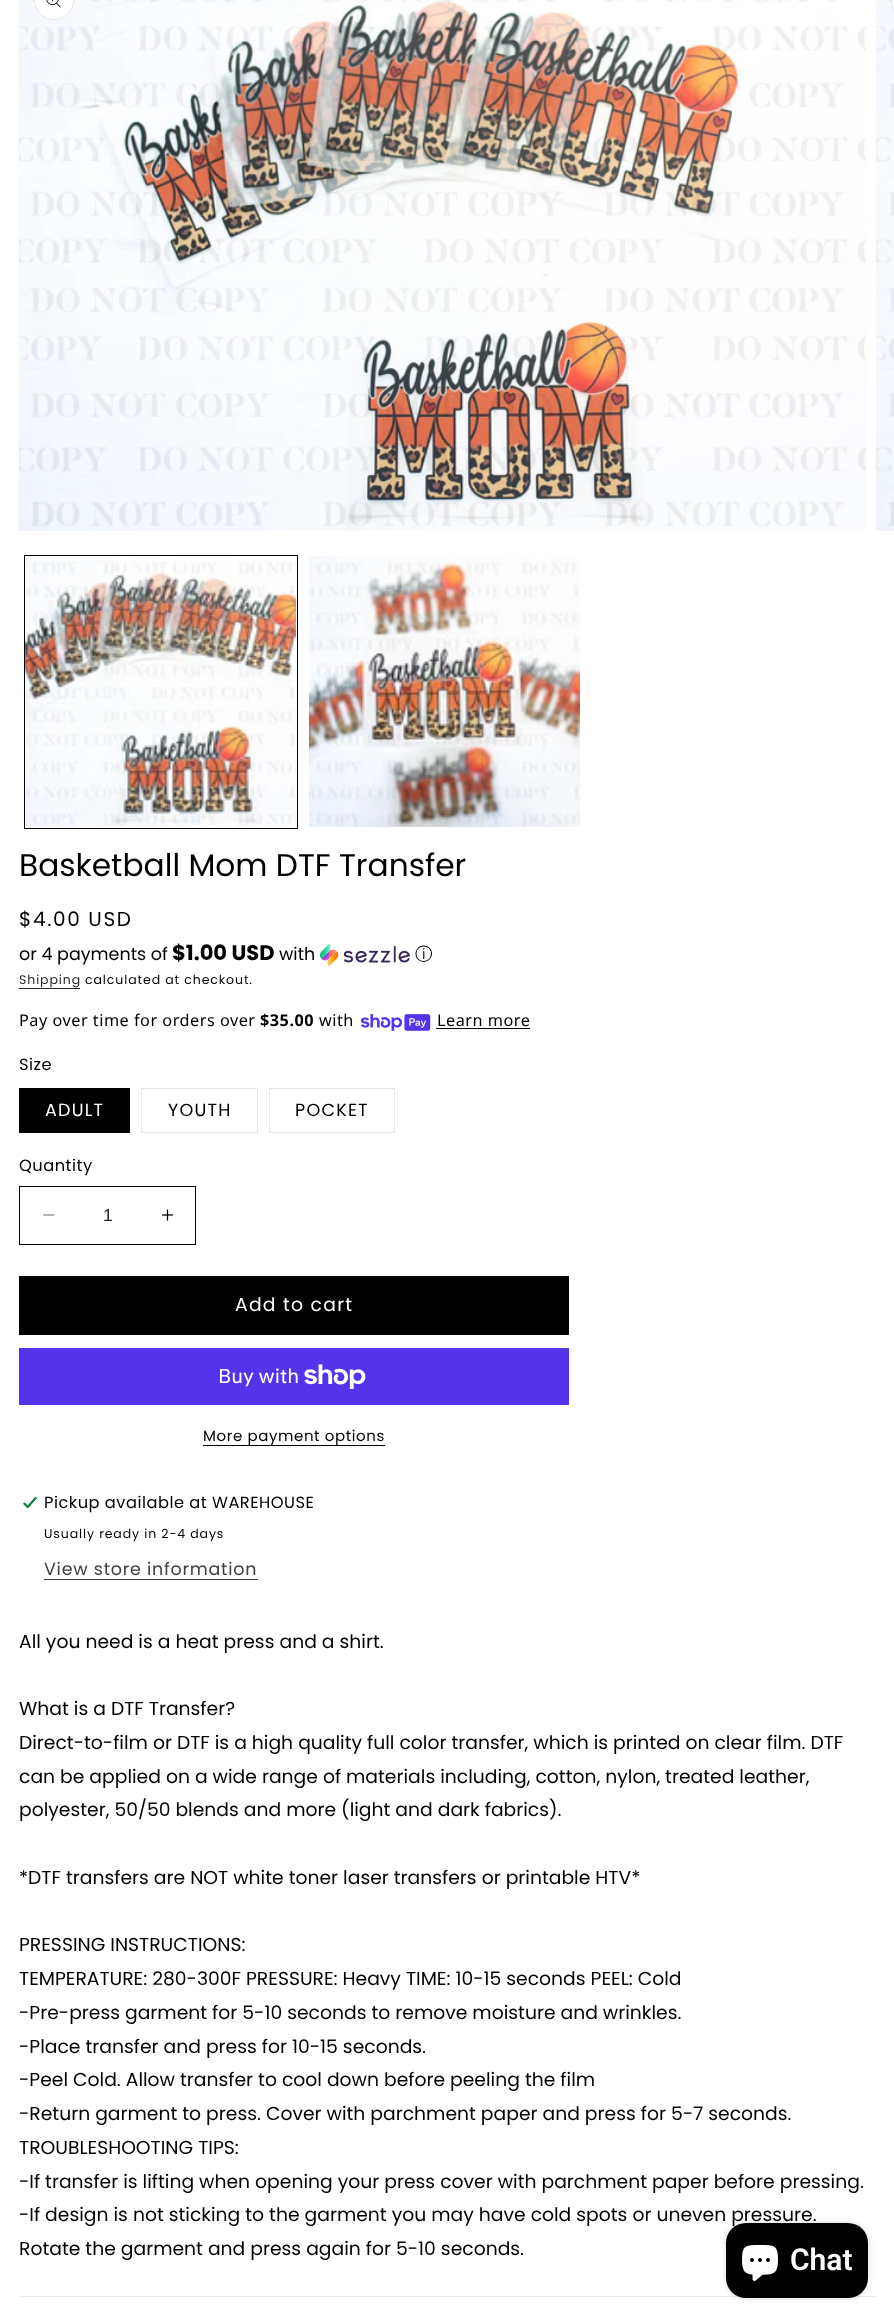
<svg xmlns="http://www.w3.org/2000/svg" width="894" height="2323" viewBox="0 0 894 2323">
  <rect width="100%" height="100%" fill="rgb(255,255,255)"/>
  <image x="18" y="0" width="849" height="531" href="pic2.png"/>
  <circle cx="54" cy="0" r="20" fill="rgb(255,255,255)"/>
  <circle cx="54" cy="0" r="19.5" fill="none" stroke="rgba(0,0,0,0.1)"/>
  <image x="46" y="0" width="15" height="8" href="pic1.png"/>
  <image x="876" y="0" width="18" height="531" href="pic3.png"/>
  <path d="M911-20H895V20H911C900 20 891 11 891 0C891-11 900-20 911-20Z" fill="rgb(255,255,255)"/>
  <rect x="891.5" y="-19.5" width="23" height="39" rx="19.5" fill="none" stroke="rgba(0,0,0,0.1)"/>
  <rect x="24.5" y="555.5" width="273" height="273" fill="none" stroke="rgb(0,0,0)"/>
  <image x="25" y="556" width="272" height="271" href="pic4.png"/>
  <image x="308" y="556" width="272" height="271" href="pic5.png"/>
  <text x="19" y="876" font-family="Poppins" font-size="31.25" fill="rgb(0,0,0)">Basketball Mom DTF Transfer</text>
  <text x="19" y="926" font-family="Poppins" font-size="20" letter-spacing="1.6" fill="rgb(0,0,0)">$4.00 USD</text>
  <text x="19" y="960" font-family="Poppins" font-size="17.5" fill="rgb(0,0,0)">or 4 payments of</text>
  <text x="172" y="960" font-family="Poppins" font-size="21" font-weight="bold" fill="rgb(0,0,0)">$1.00 USD</text>
  <text x="279" y="960" font-family="Poppins" font-size="17.5" fill="rgb(0,0,0)">with</text>
  <image x="320" y="944" width="90" height="22" href="pic6.png"/>
  <text x="415" y="960" font-family="WenQuanYi Zen Hei" font-size="17.5" font-weight="500" fill="rgb(0,0,0)">ⓘ</text>
  <text x="19" y="984" font-family="Poppins" font-size="12.5" letter-spacing="0.9" fill="rgb(38,38,38)">Shipping</text>
  <rect x="19" y="988" width="61" height="1" fill="rgb(38,38,38)"/>
  <text x="85" y="984" font-family="Poppins" font-size="12.5" letter-spacing="0.9" fill="rgb(0,0,0)">calculated at checkout.</text>
  <text x="19" y="1026" font-family="Noto Sans" font-size="16.25" letter-spacing="0.5" fill="rgb(0,0,0)">Pay over time for orders over</text>
  <text x="260" y="1026" font-family="Noto Sans" font-size="16.25" font-weight="bold" letter-spacing="0.5" fill="rgb(0,0,0)">$35.00</text>
  <text x="319" y="1026" font-family="Noto Sans" font-size="16.25" letter-spacing="0.5" fill="rgb(0,0,0)">with</text>
  <image x="361" y="1014" width="70" height="17" href="pic7.png"/>
  <text x="437" y="1026" font-family="Noto Sans" font-size="16.25" letter-spacing="0.5" fill="rgb(0,0,0)">Learn more</text>
  <rect x="436" y="1028" width="94" height="1" fill="rgb(0,0,0)"/>
  <text x="19" y="1070" font-family="Poppins" font-size="16.25" letter-spacing="0.5" fill="rgb(0,0,0)">Size</text>
  <rect x="19" y="1088" width="111" height="45" fill="rgb(0,0,0)"/>
  <text x="45" y="1116" font-family="Poppins" font-size="17.5" letter-spacing="1.25" fill="rgb(255,255,255)">ADULT</text>
  <rect x="141.5" y="1088.5" width="116" height="44" fill="none" stroke="rgb(230,230,230)"/>
  <text x="168" y="1116" font-family="Poppins" font-size="17.5" letter-spacing="1.25" fill="rgb(0,0,0)">YOUTH</text>
  <rect x="269.5" y="1088.5" width="125" height="44" fill="none" stroke="rgb(230,230,230)"/>
  <text x="295" y="1116" font-family="Poppins" font-size="17.5" letter-spacing="1.25" fill="rgb(0,0,0)">POCKET</text>
  <text x="19" y="1171" font-family="Poppins" font-size="16.25" letter-spacing="0.5" fill="rgb(0,0,0)">Quantity</text>
  <image x="43" y="1214" width="12" height="2" href="pic8.png"/>
  <image x="162" y="1209" width="12" height="12" href="pic9.png"/>
  <rect x="19.5" y="1186.5" width="176" height="58" fill="none" stroke="rgb(0,0,0)"/>
  <text x="103" y="1221" font-family="Liberation Sans" font-size="17.5" fill="rgb(38,38,38)">1</text>
  <rect x="19" y="1276" width="550" height="59" fill="rgb(0,0,0)"/>
  <text x="235" y="1311" font-family="Poppins" font-size="18.75" letter-spacing="1.25" fill="rgb(255,255,255)">Add to cart</text>
  <rect x="19" y="1348" width="550" height="57" fill="rgb(84,51,235)"/>
  <text x="218" y="1383" font-family="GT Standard" font-size="20" fill="rgb(255,255,255)">Buy with</text>
  <image x="304" y="1364" width="62" height="25" href="pic10.png"/>
  <text x="203" y="1441" font-family="Poppins" font-size="15" letter-spacing="0.6" fill="rgb(0,0,0)">More payment options</text>
  <rect x="203" y="1445" width="182" height="1" fill="rgb(0,0,0)"/>
  <image x="22" y="1496" width="16" height="13" href="pic11.png"/>
  <text x="44" y="1508" font-family="Poppins" font-size="16.25" letter-spacing="0.5" fill="rgb(0,0,0)">Pickup available at WAREHOUSE</text>
  <text x="44" y="1538" font-family="Poppins" font-size="12.5" letter-spacing="0.9" fill="rgb(0,0,0)">Usually ready in 2-4 days</text>
  <text x="44" y="1575" font-family="Poppins" font-size="17.5" letter-spacing="0.75" fill="rgb(64,64,64)">View store information</text>
  <rect x="44" y="1579" width="214" height="1" fill="rgb(64,64,64)"/>
  <g font-family="Poppins" font-size="18.75" fill="rgb(0,0,0)">
    <text x="19" y="1648">All you need is a heat press and a shirt.</text>
    <text>
      <tspan x="19" y="1715">What is a DTF Transfer?</tspan>
      <tspan x="19" y="1749">Direct-to-film or DTF is a high quality full color transfer, which is printed on clear film. DTF</tspan>
      <tspan x="19" y="1783">can be applied on a wide range of materials including, cotton, nylon, treated leather,</tspan>
      <tspan x="19" y="1816">polyester, 50/50 blends and more (light and dark fabrics).</tspan>
    </text>
    <text x="19" y="1884">*DTF transfers are NOT white toner laser transfers or printable HTV*</text>
    <text>
      <tspan x="19" y="1951">PRESSING INSTRUCTIONS:</tspan>
      <tspan x="19" y="1985">TEMPERATURE: 280-300F PRESSURE: Heavy TIME: 10-15 seconds PEEL: Cold</tspan>
      <tspan x="19" y="2019">-Pre-press garment for 5-10 seconds to remove moisture and wrinkles.</tspan>
      <tspan x="19" y="2053">-Place transfer and press for 10-15 seconds.</tspan>
      <tspan x="19" y="2086">-Peel Cold. Allow transfer to cool down before peeling the film</tspan>
      <tspan x="19" y="2120">-Return garment to press. Cover with parchment paper and press for 5-7 seconds.</tspan>
      <tspan x="19" y="2154">TROUBLESHOOTING TIPS:</tspan>
      <tspan x="19" y="2188">-If transfer is lifting when opening your press cover with parchment paper before pressing.</tspan>
      <tspan x="19" y="2221">-If design is not sticking to the garment you may have cold spots or uneven pressure.</tspan>
      <tspan x="19" y="2255">Rotate the garment and press again for 5-10 seconds.</tspan>
    </text>
  </g>
  <rect x="19" y="2296" width="857" height="1" fill="rgb(235,235,235)"/>
  <rect x="726" y="2223" width="142" height="75" rx="20" fill="rgba(0,0,0,0.15)" filter="blur(3px)"/>
  <rect x="726" y="2223" width="142" height="75" rx="20" fill="rgb(0,0,0)"/>
  <image x="742" y="2245" width="36" height="36" href="pic12.png"/>
  <text x="790" y="2270" font-family="Roboto" font-size="30" font-weight="600" fill="rgb(255,255,255)">Chat</text>
</svg>
